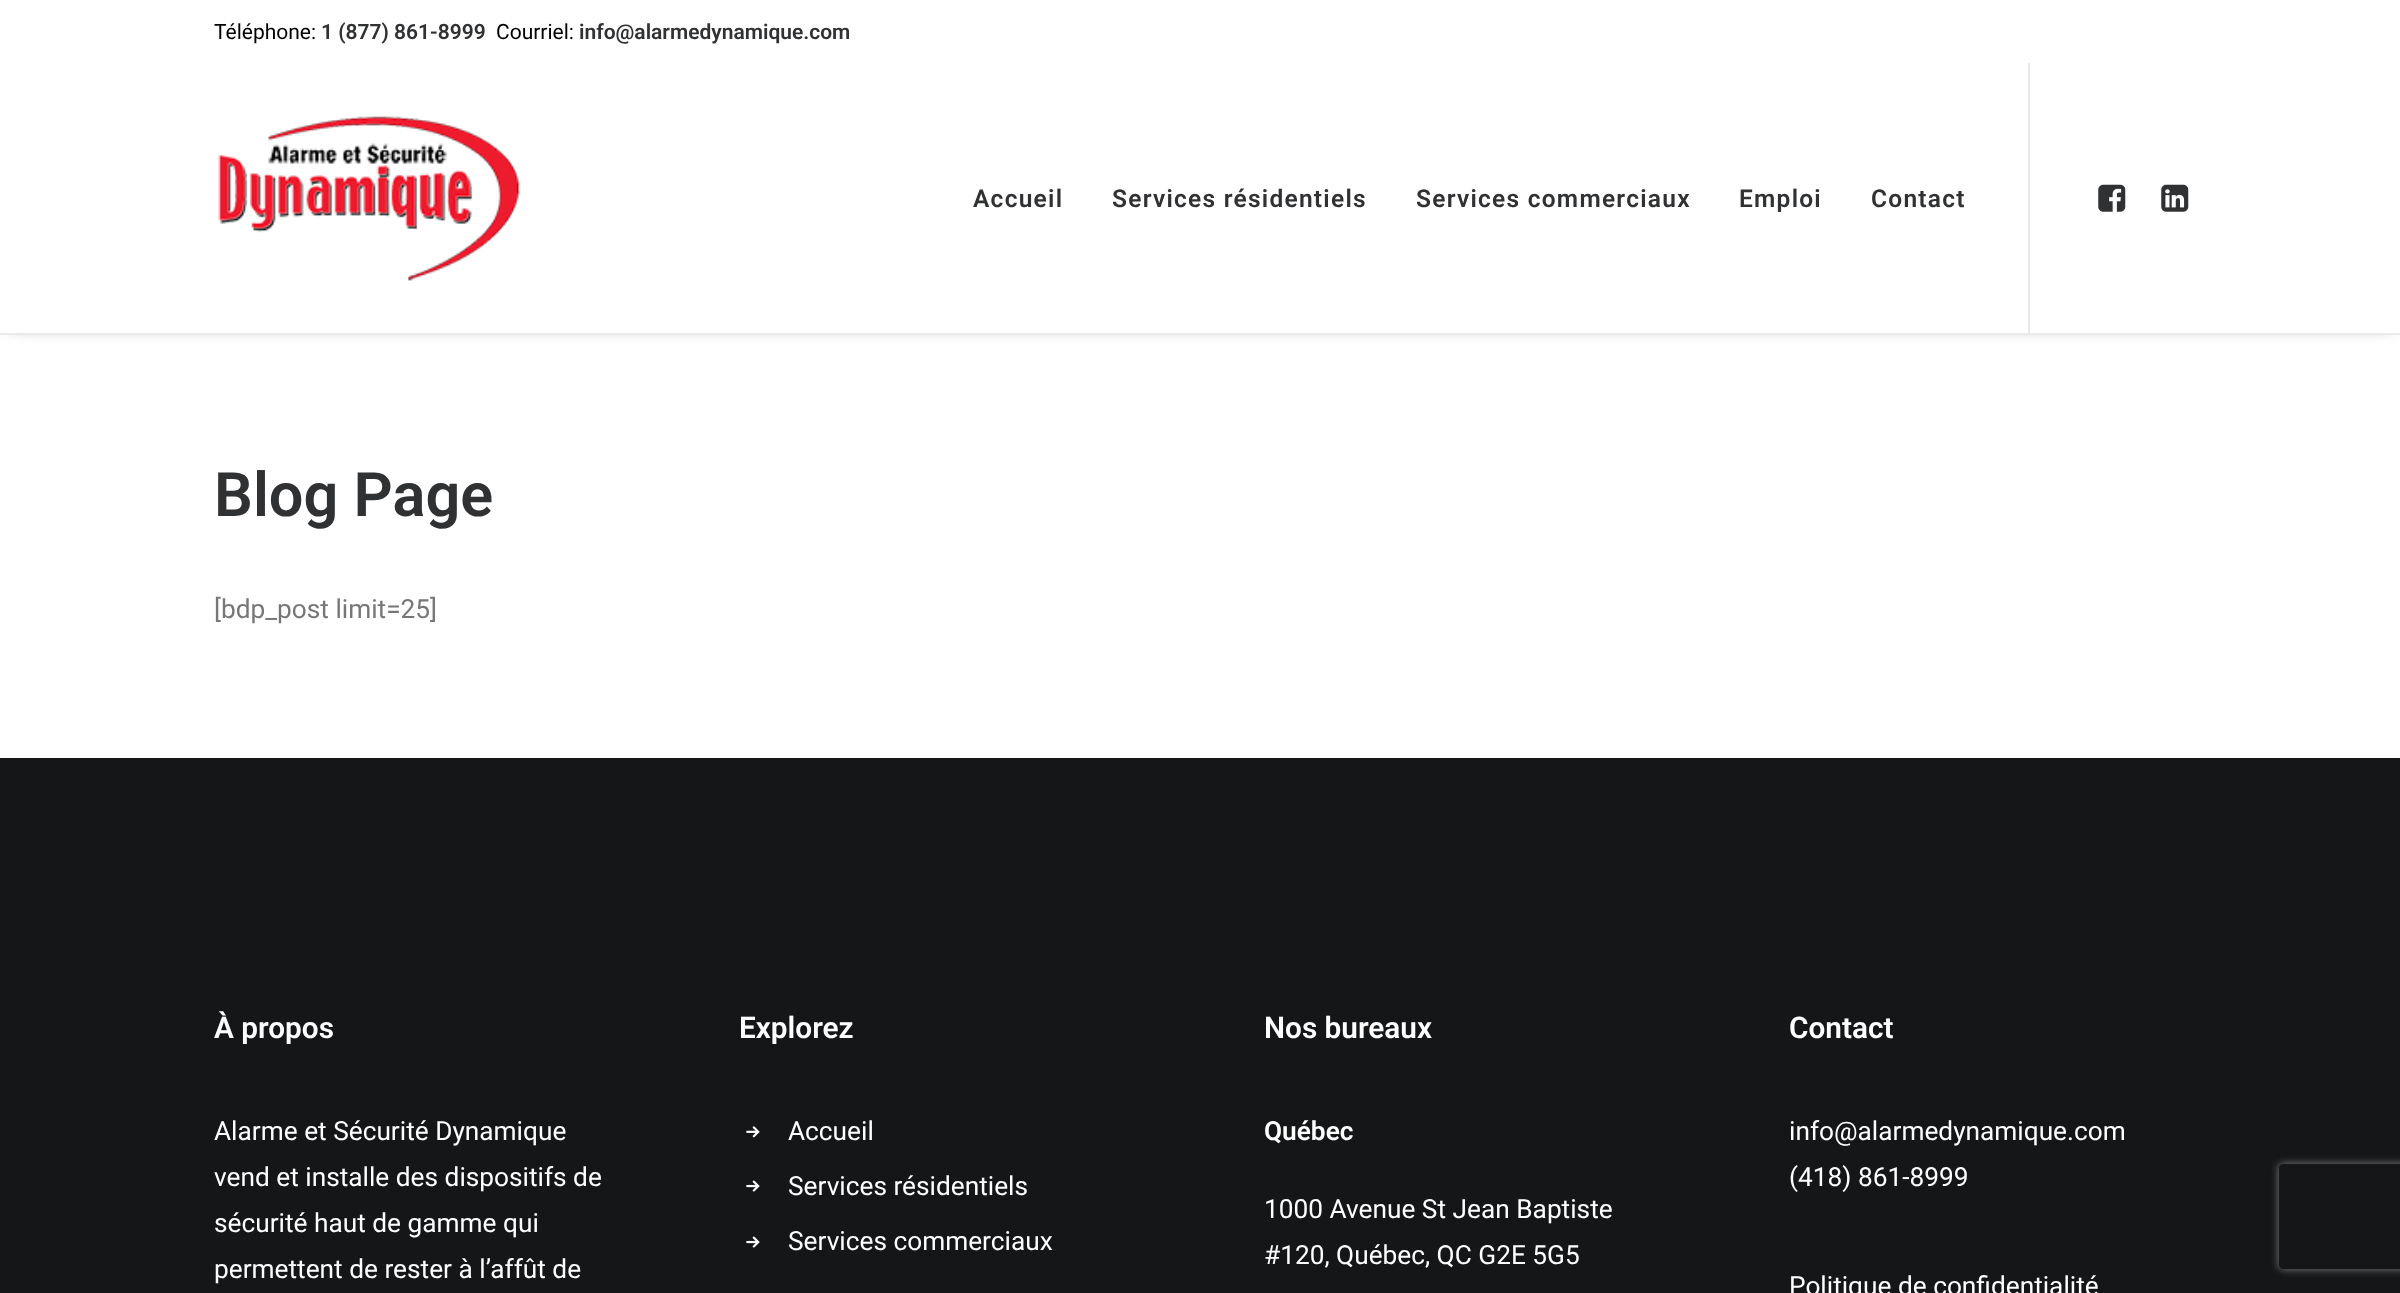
<svg xmlns="http://www.w3.org/2000/svg" width="2400" height="1293" viewBox="0 0 2400 1293">
  <defs>
    <clipPath id="clip1"><path d="M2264 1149H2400V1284H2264ZM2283 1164H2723C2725 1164 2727 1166 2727 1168V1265C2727 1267 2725 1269 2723 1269H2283C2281 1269 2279 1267 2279 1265V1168C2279 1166 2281 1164 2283 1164Z" clip-rule="evenodd"/></clipPath>
  </defs>
  <rect width="100%" height="100%" fill="rgb(255,255,255)"/>
  <text x="214" y="39" font-family="Roboto" font-size="21" fill="rgb(0,0,0)">Téléphone:</text>
  <text x="321" y="39" font-family="Roboto" font-size="21" font-weight="600" fill="rgb(48,49,51)">1 (877) 861-8999</text>
  <text x="496" y="39" font-family="Roboto" font-size="21" fill="rgb(0,0,0)">Courriel:</text>
  <text x="579" y="39" font-family="Roboto" font-size="21" font-weight="600" fill="rgb(48,49,51)">info@alarmedynamique.com</text>
  <rect x="11" y="88" width="2380" height="236" fill="rgba(0,0,0,0.6)" filter="blur(9px)"/>
  <rect x="0" y="69" width="2400" height="264" fill="rgb(255,255,255)"/>
  <rect x="0" y="333" width="2400" height="2" fill="rgb(234,234,234)"/>
  <image x="218" y="116" width="303" height="165" href="pic1.png"/>
  <g font-family="Roboto" font-size="24.5" font-weight="600" letter-spacing="1.25" fill="rgb(48,49,51)">
    <text x="973" y="207">Accueil</text>
    <text x="1112" y="207">Services résidentiels</text>
    <text x="1416" y="207">Services commerciaux</text>
    <text x="1739" y="207">Emploi</text>
    <text x="1871" y="207">Contact</text>
  </g>
  <rect x="2028" y="63" width="2" height="270" fill="rgb(234,234,234)"/>
  <image x="2098" y="184" width="28" height="28" href="pic2.png"/>
  <image x="2161" y="184" width="28" height="28" href="pic3.png"/>
  <text x="214" y="516" font-family="Roboto" font-size="61.25" font-weight="600" fill="rgb(48,49,51)">Blog Page</text>
  <text x="214" y="618" font-family="Roboto" font-size="26.25" fill="rgb(119,119,119)">[bdp_post limit=25]</text>
  <rect x="0" y="758" width="2400" height="535" fill="rgb(20,22,24)"/>
  <text x="214" y="1038" font-family="Roboto" font-size="29.75" font-weight="600" fill="rgb(255,255,255)">À propos</text>
  <g font-family="Roboto" font-size="26.25" fill="rgb(255,255,255)">
    <text>
      <tspan x="214" y="1140">Alarme et Sécurité Dynamique</tspan>
      <tspan x="214" y="1186">vend et installe des dispositifs de</tspan>
      <tspan x="214" y="1232">sécurité haut de gamme qui</tspan>
      <tspan x="214" y="1278">permettent de rester à l’affût de</tspan>
    </text>
  </g>
  <text x="739" y="1038" font-family="Roboto" font-size="29.75" font-weight="600" fill="rgb(255,255,255)">Explorez</text>
  <image x="746" y="1126" width="14" height="12" href="pic4.png"/>
  <text x="788" y="1140" font-family="Roboto" font-size="26.25" fill="rgb(255,255,255)">Accueil</text>
  <image x="746" y="1180" width="14" height="12" href="pic5.png"/>
  <text x="788" y="1195" font-family="Roboto" font-size="26.25" fill="rgb(255,255,255)">Services résidentiels</text>
  <image x="746" y="1236" width="14" height="12" href="pic5.png"/>
  <text x="788" y="1250" font-family="Roboto" font-size="26.25" fill="rgb(255,255,255)">Services commerciaux</text>
  <text x="1264" y="1038" font-family="Roboto" font-size="29.75" font-weight="600" fill="rgb(255,255,255)">Nos bureaux</text>
  <text x="1264" y="1140" font-family="Roboto" font-size="26.25" font-weight="600" fill="rgb(255,255,255)">Québec</text>
  <g font-family="Roboto" font-size="26.25" fill="rgb(255,255,255)">
    <text>
      <tspan x="1264" y="1218">1000 Avenue St Jean Baptiste</tspan>
      <tspan x="1264" y="1264">#120, Québec, QC G2E 5G5</tspan>
    </text>
  </g>
  <text x="1789" y="1038" font-family="Roboto" font-size="29.75" font-weight="600" fill="rgb(255,255,255)">Contact</text>
  <g font-family="Roboto" font-size="26.25" fill="rgb(255,255,255)">
    <text>
      <tspan x="1789" y="1140">info@alarmedynamique.com</tspan>
      <tspan x="1789" y="1186">(418) 861-8999</tspan>
    </text>
    <text x="1789" y="1295">Politique de confidentialité</text>
  </g>
  <g clip-path="url(#clip1)">
    <rect x="2279" y="1164" width="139" height="105" rx="4" fill="rgb(128,128,128)" filter="blur(4.5px)"/>
  </g>
</svg>
